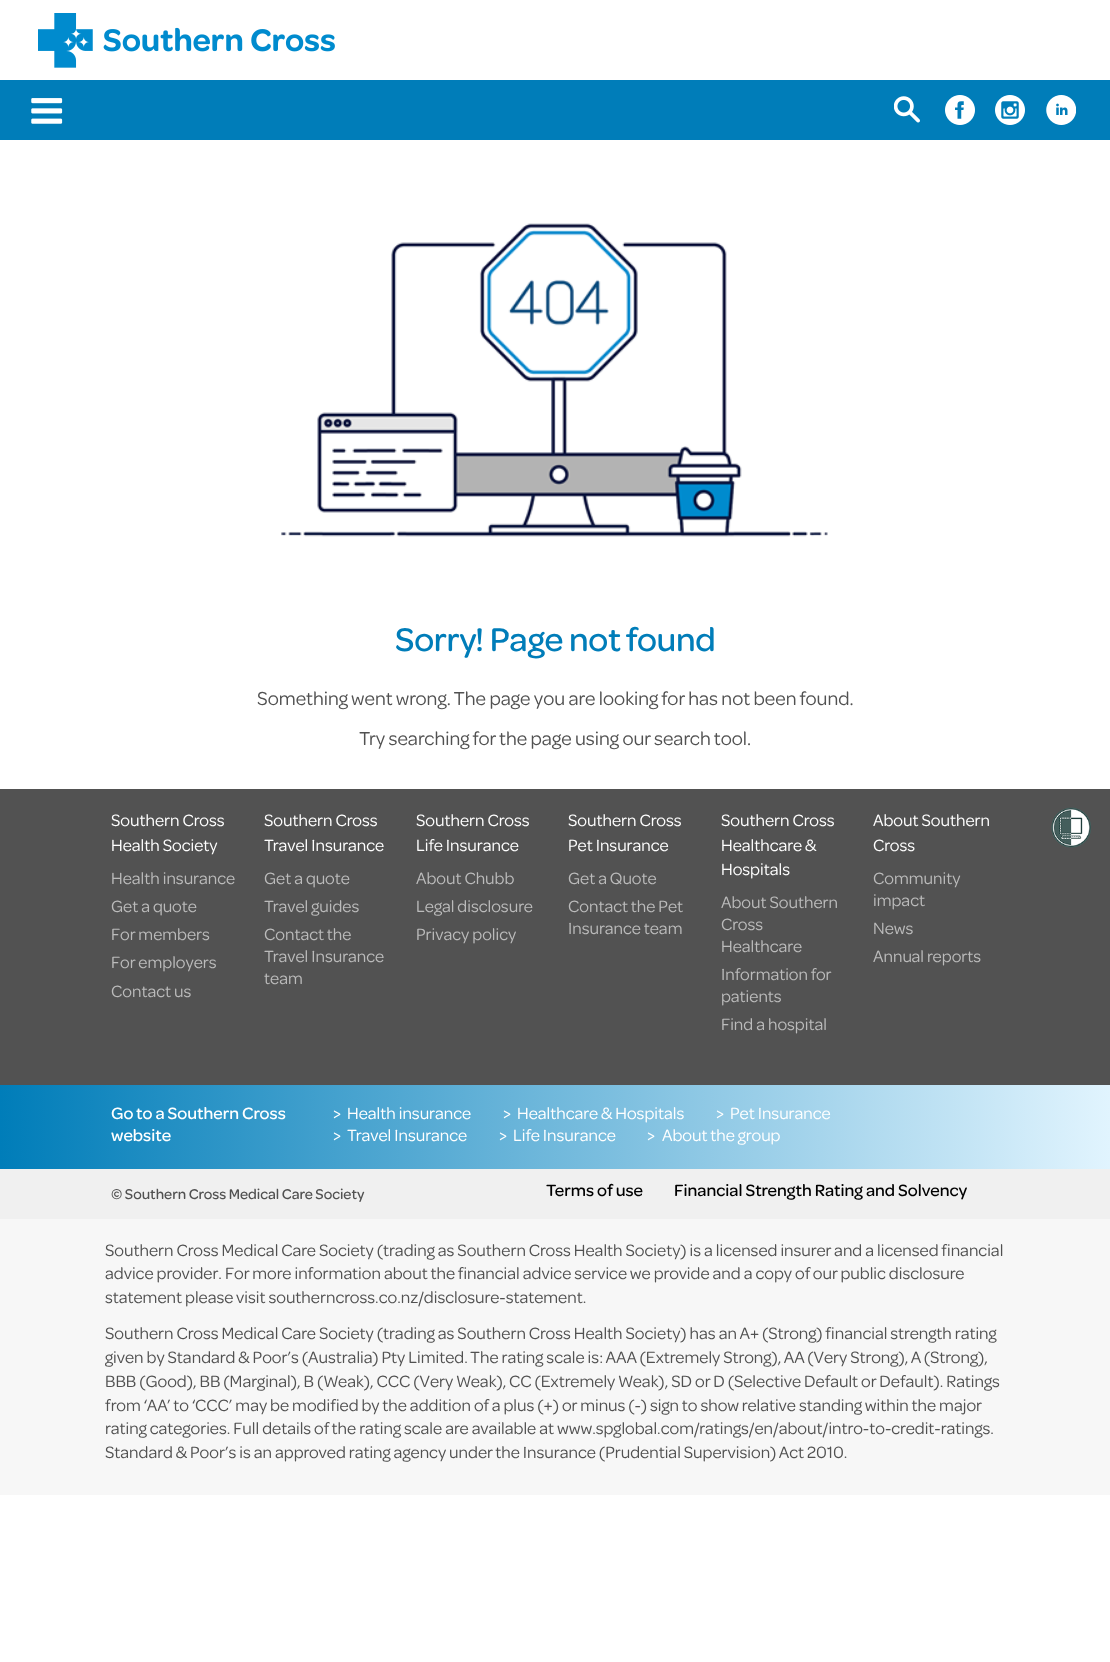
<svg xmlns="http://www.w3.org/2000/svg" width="1110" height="1662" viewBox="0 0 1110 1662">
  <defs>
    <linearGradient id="g1" gradientUnits="userSpaceOnUse" x1="1110" y1="1127" x2="0" y2="1127"><stop offset="0" stop-color="rgb(225,244,254)"/><stop offset="1" stop-color="rgb(0,125,185)"/></linearGradient>
  </defs>
  <rect width="100%" height="100%" fill="rgb(255,255,255)"/>
  <image x="38" y="13" width="297" height="55" href="pic1.png"/>
  <rect x="0" y="80" width="1110" height="60" fill="rgb(0,125,185)"/>
  <image x="31" y="98" width="32" height="26" href="pic2.png"/>
  <image x="894" y="96" width="26" height="27" href="pic3.png"/>
  <image x="945" y="95" width="30" height="30" href="pic4.png"/>
  <image x="995" y="95" width="30" height="30" href="pic5.png"/>
  <image x="1046" y="95" width="30" height="30" href="pic6.png"/>
  <image x="281" y="223" width="547" height="314" href="pic7.png"/>
  <text x="395" y="651" font-family="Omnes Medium" font-size="35" font-weight="500" letter-spacing="-0.25" fill="rgb(0,125,185)">Sorry! Page not found</text>
  <g font-family="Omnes" font-size="20" fill="rgb(81,81,81)">
    <text x="257" y="705">Something went wrong. The page you are looking for has not been found.</text>
    <text x="359" y="745">Try searching for the page using our search tool.</text>
  </g>
  <rect x="0" y="789" width="1110" height="296" fill="rgb(82,82,82)"/>
  <g font-family="Omnes" font-size="17.5" fill="rgb(255,255,255)">
    <text>
      <tspan x="111" y="826">Southern Cross</tspan>
      <tspan x="111" y="851">Health Society</tspan>
    </text>
  </g>
  <g font-family="Omnes" font-size="17.5" fill="rgb(187,187,187)">
    <text>
      <tspan x="111" y="884">Health insurance</tspan>
      <tspan x="111" y="912">Get a quote</tspan>
      <tspan x="111" y="940">For members</tspan>
      <tspan x="111" y="968">For employers</tspan>
      <tspan x="111" y="997">Contact us</tspan>
    </text>
  </g>
  <g font-family="Omnes" font-size="17.5" fill="rgb(255,255,255)">
    <text>
      <tspan x="264" y="826">Southern Cross</tspan>
      <tspan x="264" y="851">Travel Insurance</tspan>
    </text>
  </g>
  <g font-family="Omnes" font-size="17.5" fill="rgb(187,187,187)">
    <text>
      <tspan x="264" y="884">Get a quote</tspan>
      <tspan x="264" y="912">Travel guides</tspan>
      <tspan x="264" y="940">Contact the</tspan>
      <tspan x="264" y="962">Travel Insurance</tspan>
      <tspan x="264" y="984">team</tspan>
    </text>
  </g>
  <g font-family="Omnes" font-size="17.5" fill="rgb(255,255,255)">
    <text>
      <tspan x="416" y="826">Southern Cross</tspan>
      <tspan x="416" y="851">Life Insurance</tspan>
    </text>
  </g>
  <g font-family="Omnes" font-size="17.5" fill="rgb(187,187,187)">
    <text>
      <tspan x="416" y="884">About Chubb</tspan>
      <tspan x="416" y="912">Legal disclosure</tspan>
      <tspan x="416" y="940">Privacy policy</tspan>
    </text>
  </g>
  <g font-family="Omnes" font-size="17.5" fill="rgb(255,255,255)">
    <text>
      <tspan x="568" y="826">Southern Cross</tspan>
      <tspan x="568" y="851">Pet Insurance</tspan>
    </text>
  </g>
  <g font-family="Omnes" font-size="17.5" fill="rgb(187,187,187)">
    <text>
      <tspan x="568" y="884">Get a Quote</tspan>
      <tspan x="568" y="912">Contact the Pet</tspan>
      <tspan x="568" y="934">Insurance team</tspan>
    </text>
  </g>
  <g font-family="Omnes" font-size="17.5" fill="rgb(255,255,255)">
    <text>
      <tspan x="721" y="826">Southern Cross</tspan>
      <tspan x="721" y="851">Healthcare &amp;</tspan>
      <tspan x="721" y="875">Hospitals</tspan>
    </text>
  </g>
  <g font-family="Omnes" font-size="17.5" fill="rgb(187,187,187)">
    <text>
      <tspan x="721" y="908">About Southern</tspan>
      <tspan x="721" y="930">Cross</tspan>
      <tspan x="721" y="952">Healthcare</tspan>
      <tspan x="721" y="980">Information for</tspan>
      <tspan x="721" y="1002">patients</tspan>
      <tspan x="721" y="1030">Find a hospital</tspan>
    </text>
  </g>
  <g font-family="Omnes" font-size="17.5" fill="rgb(255,255,255)">
    <text>
      <tspan x="873" y="826">About Southern</tspan>
      <tspan x="873" y="851">Cross</tspan>
    </text>
  </g>
  <g font-family="Omnes" font-size="17.5" fill="rgb(187,187,187)">
    <text>
      <tspan x="873" y="884">Community</tspan>
      <tspan x="873" y="906">impact</tspan>
      <tspan x="873" y="934">News</tspan>
      <tspan x="873" y="962">Annual reports</tspan>
    </text>
  </g>
  <rect x="0" y="1085" width="1110" height="84" fill="url(#g1)"/>
  <g font-family="Omnes Medium" font-size="17.5" font-weight="500" fill="rgb(255,255,255)">
    <text>
      <tspan x="111" y="1119">Go to a Southern Cross</tspan>
      <tspan x="111" y="1141">website</tspan>
    </text>
  </g>
  <g font-family="Omnes" font-size="17.5" fill="rgb(255,255,255)">
    <text x="333" y="1119">&gt;</text>
    <text x="347" y="1119">Health insurance</text>
    <text x="503" y="1119">&gt;</text>
    <text x="517" y="1119">Healthcare &amp; Hospitals</text>
    <text x="716" y="1119">&gt;</text>
    <text x="730" y="1119">Pet Insurance</text>
    <text x="333" y="1141">&gt;</text>
    <text x="347" y="1141">Travel Insurance</text>
    <text x="499" y="1141">&gt;</text>
    <text x="513" y="1141">Life Insurance</text>
    <text x="647" y="1141">&gt;</text>
    <text x="662" y="1141">About the group</text>
  </g>
  <rect x="0" y="1169" width="1110" height="50" fill="rgb(240,240,240)"/>
  <text x="111" y="1199" font-family="Omnes Medium" font-size="15" font-weight="500" fill="rgb(81,81,81)">© Southern Cross Medical Care Society</text>
  <g font-family="Omnes Medium" font-size="17.5" font-weight="500" fill="rgb(0,0,0)">
    <text x="546" y="1196">Terms of use</text>
    <text x="674" y="1196">Financial Strength Rating and Solvency</text>
  </g>
  <rect x="0" y="1219" width="1110" height="276" fill="rgb(247,247,247)"/>
  <g font-family="Omnes" font-size="17.5" fill="rgb(81,81,81)">
    <text>
      <tspan x="105" y="1256">Southern Cross Medical Care Society (trading as Southern Cross Health Society) is a licensed insurer and a licensed financial</tspan>
      <tspan x="105" y="1279">advice provider. For more information about the financial advice service we provide and a copy of our public disclosure</tspan>
      <tspan x="105" y="1303">statement please visit southerncross.co.nz/disclosure-statement.</tspan>
    </text>
    <text>
      <tspan x="105" y="1339">Southern Cross Medical Care Society (trading as Southern Cross Health Society) has an A+ (Strong) financial strength rating</tspan>
      <tspan x="105" y="1363">given by Standard &amp; Poor’s (Australia) Pty Limited. The rating scale is: AAA (Extremely Strong), AA (Very Strong), A (Strong),</tspan>
      <tspan x="105" y="1387">BBB (Good), BB (Marginal), B (Weak), CCC (Very Weak), CC (Extremely Weak), SD or D (Selective Default or Default). Ratings</tspan>
      <tspan x="105" y="1411">from ‘AA’ to ‘CCC’ may be modified by the addition of a plus (+) or minus (-) sign to show relative standing within the major</tspan>
      <tspan x="105" y="1434">rating categories. Full details of the rating scale are available at</tspan>
    </text>
    <text x="557" y="1434">www.spglobal.com/ratings/en/about/intro-to-credit-ratings.</text>
    <text x="105" y="1458">Standard &amp; Poor’s is an approved rating agency under the Insurance (Prudential Supervision) Act 2010.</text>
  </g>
  <image x="1051" y="807" width="40" height="41" href="pic8.png"/>
</svg>
